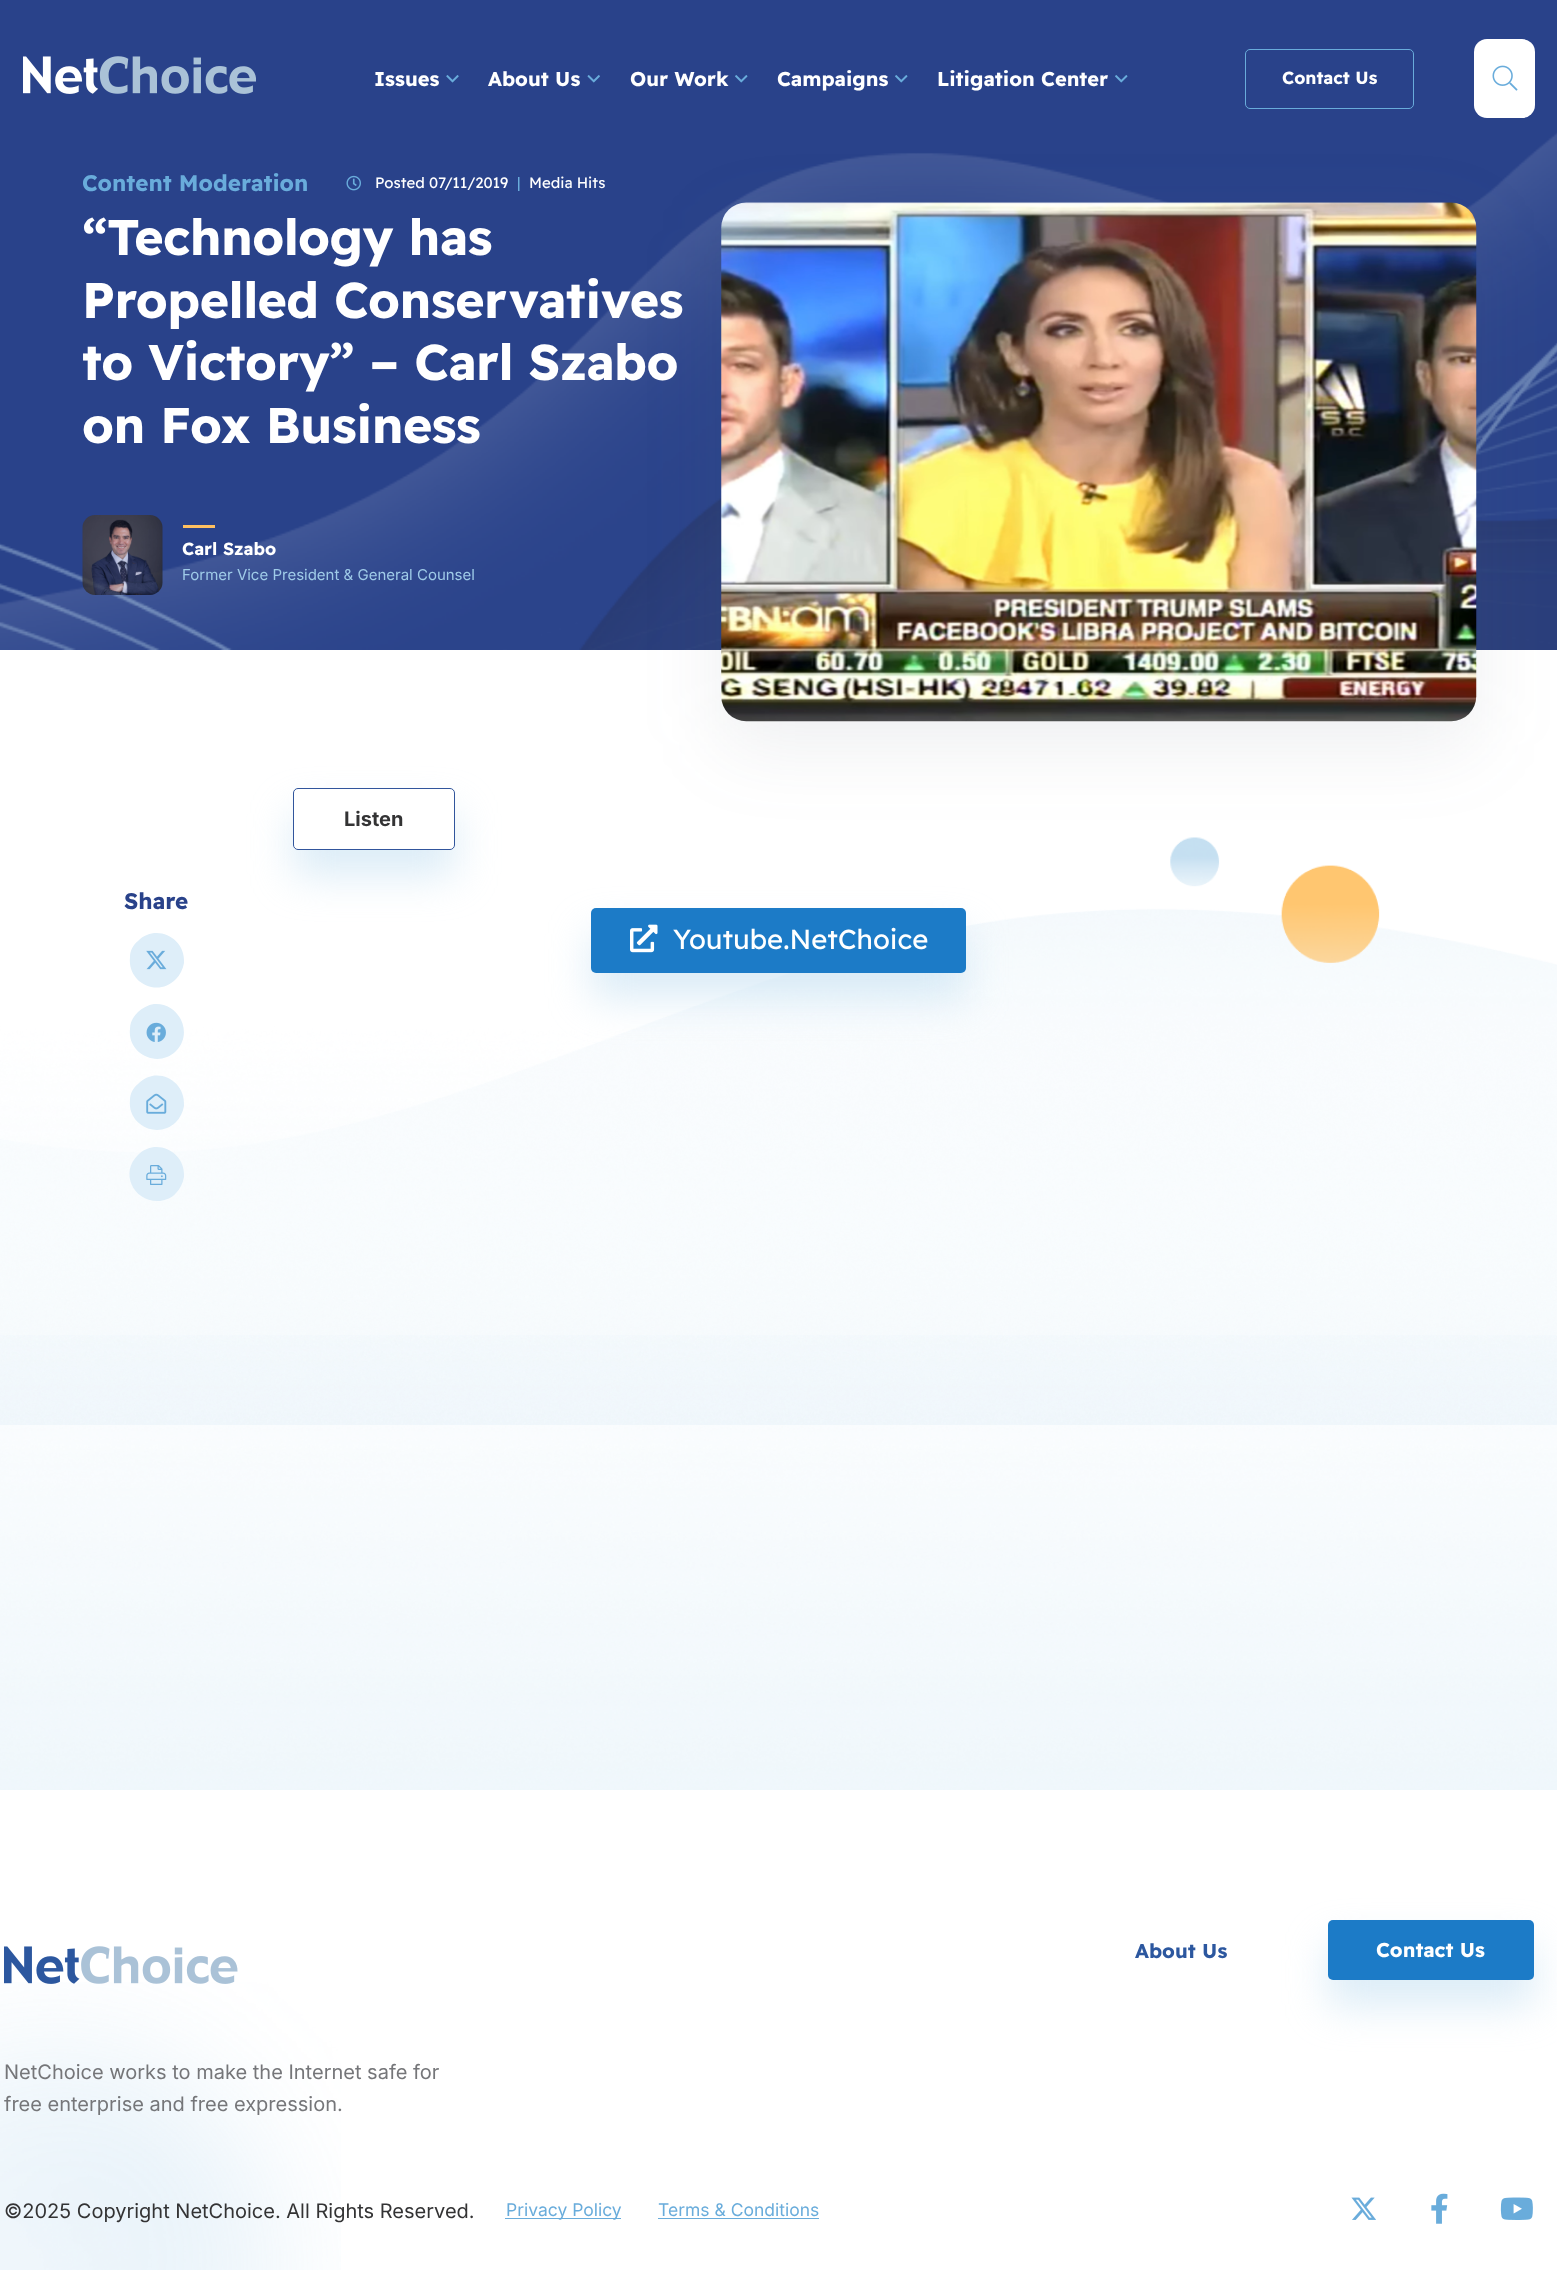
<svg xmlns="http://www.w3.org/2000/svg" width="1557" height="2270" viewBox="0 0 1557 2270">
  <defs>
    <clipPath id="clip1"><path d="M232 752H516V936H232ZM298 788H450C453 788 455 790 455 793V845C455 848 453 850 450 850H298C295 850 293 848 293 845V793C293 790 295 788 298 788Z" clip-rule="evenodd"/></clipPath>
  </defs>
  <rect width="100%" height="100%" fill="rgb(255,255,255)"/>
  <image x="0" y="0" width="1557" height="650" href="pic7.png"/>
  <image x="23" y="56" width="233" height="38" href="pic1.png"/>
  <text x="374" y="86" font-family="Readex Pro" font-size="20" font-weight="bold" fill="rgb(255,255,255)">Issues</text>
  <image x="446" y="75" width="13" height="8" href="pic2.png"/>
  <text x="488" y="86" font-family="Readex Pro" font-size="20" font-weight="bold" fill="rgb(255,255,255)">About Us</text>
  <image x="587" y="75" width="13" height="8" href="pic3.png"/>
  <text x="630" y="86" font-family="Readex Pro" font-size="20" font-weight="bold" fill="rgb(255,255,255)">Our Work</text>
  <image x="735" y="75" width="13" height="8" href="pic4.png"/>
  <text x="777" y="86" font-family="Readex Pro" font-size="20" font-weight="bold" fill="rgb(255,255,255)">Campaigns</text>
  <image x="895" y="75" width="13" height="8" href="pic4.png"/>
  <text x="937" y="86" font-family="Readex Pro" font-size="20" font-weight="bold" fill="rgb(255,255,255)">Litigation Center</text>
  <image x="1115" y="75" width="13" height="8" href="pic4.png"/>
  <rect x="1245.5" y="49.5" width="168" height="59" rx="4.5" fill="none" stroke="rgb(105,172,219)"/>
  <text x="1282" y="84" font-family="Readex Pro" font-size="17.5" font-weight="bold" fill="rgb(255,255,255)">Contact Us</text>
  <image x="0" y="1335" width="1557" height="455" href="pic6.png"/>
  <image x="0" y="837" width="1557" height="588" href="pic11.png"/>
  <rect x="721" y="228" width="755" height="518" rx="25" fill="rgba(86,101,122,0.1)" filter="blur(39px)"/>
  <rect x="1474" y="39" width="61" height="79" rx="13" fill="rgb(255,255,255)"/>
  <image x="1492" y="65" width="26" height="26" href="pic5.png"/>
  <text x="82" y="191" font-family="Readex Pro" font-size="22.5" font-weight="bold" fill="rgb(105,172,219)">Content Moderation</text>
  <image x="346" y="175" width="15" height="16" href="pic8.png"/>
  <text x="375" y="188" font-family="Readex Pro" font-size="15" fill="rgb(255,255,255)">Posted 07/11/2019</text>
  <text x="517" y="188" font-family="Readex Pro" font-size="15" fill="rgb(105,172,219)">|</text>
  <text x="529" y="188" font-family="Readex Pro" font-size="15" fill="rgb(255,255,255)">Media Hits</text>
  <g font-family="Readex Pro" font-size="50" font-weight="bold" letter-spacing="-0.5" fill="rgb(255,255,255)">
    <text>
      <tspan x="82" y="255">“Technology has</tspan>
      <tspan x="82" y="318">Propelled Conservatives</tspan>
      <tspan x="82" y="380">to Victory” – Carl Szabo</tspan>
      <tspan x="82" y="443">on Fox Business</tspan>
    </text>
  </g>
  <image x="82" y="515" width="81" height="80" href="pic9.png"/>
  <rect x="183" y="525" width="32" height="3" fill="rgb(255,192,96)"/>
  <text x="182" y="555" font-family="Readex Pro" font-size="17.5" font-weight="bold" fill="rgb(255,255,255)">Carl Szabo</text>
  <text x="182" y="580" font-family="Inter" font-size="15" fill="rgb(159,203,232)">Former Vice President &amp; General Counsel</text>
  <image x="721" y="202" width="756" height="520" href="pic10.png"/>
  <g clip-path="url(#clip1)">
    <rect x="293" y="813" width="162" height="62" rx="5" fill="rgba(195,224,241,0.6)" filter="blur(20px)"/>
  </g>
  <rect x="293.5" y="788.5" width="161" height="61" rx="4.5" fill="none" stroke="rgb(49,85,156)"/>
  <text x="344" y="826" font-family="Inter" font-size="20" font-weight="bold" fill="rgb(51,51,52)">Listen</text>
  <text x="124" y="909" font-family="Readex Pro" font-size="22.5" font-weight="bold" fill="rgb(41,66,138)">Share</text>
  <path d="M138 941C156 923 186 938 184 963C183 969 180 975 176 979C158 998 127 983 130 957C130 951 133 945 138 941Z" fill="rgb(222,238,249)"/>
  <image x="146" y="950" width="21" height="20" href="pic12.png"/>
  <path d="M138 1012C142 1008 148 1005 154 1004C179 1002 194 1033 176 1051C158 1069 127 1054 130 1029C130 1022 133 1017 138 1012Z" fill="rgb(222,238,249)"/>
  <image x="146" y="1022" width="20" height="20" href="pic13.png"/>
  <path d="M138 1084C156 1065 186 1080 184 1106C183 1112 180 1118 176 1122C158 1140 127 1125 130 1100C130 1094 133 1088 138 1084Z" fill="rgb(222,238,249)"/>
  <image x="146" y="1093" width="21" height="21" href="pic14.png"/>
  <path d="M138 1155C156 1137 186 1152 184 1177C183 1183 180 1189 176 1193C172 1198 166 1200 160 1201C134 1203 119 1173 138 1155Z" fill="rgb(222,238,249)"/>
  <image x="146" y="1165" width="21" height="20" href="pic15.png"/>
  <rect x="591" y="933" width="375" height="65" rx="5" fill="rgba(195,224,241,0.6)" filter="blur(20px)"/>
  <rect x="591" y="908" width="375" height="65" rx="5" fill="rgb(28,123,199)"/>
  <image x="630" y="924" width="28" height="29" href="pic16.png"/>
  <text x="673" y="949" font-family="Readex Pro" font-size="27.5" fill="rgb(255,255,255)">Youtube.NetChoice</text>
  <image x="0" y="1982" width="341" height="288" href="pic17.png"/>
  <text x="1135" y="1958" font-family="Readex Pro" font-size="20" font-weight="bold" fill="rgb(44,87,159)">About Us</text>
  <rect x="1328" y="1945" width="206" height="60" rx="5" fill="rgba(195,224,241,0.6)" filter="blur(20px)"/>
  <rect x="1328" y="1920" width="206" height="60" rx="5" fill="rgb(28,123,199)"/>
  <text x="1376" y="1957" font-family="Readex Pro" font-size="20" font-weight="bold" fill="rgb(255,255,255)">Contact Us</text>
  <image x="4" y="1946" width="234" height="38" href="pic18.png"/>
  <g font-family="Inter" font-size="20" fill="rgb(117,118,121)">
    <text>
      <tspan x="4" y="2079">NetChoice works to make the Internet safe for</tspan>
      <tspan x="4" y="2111">free enterprise and free expression.</tspan>
    </text>
  </g>
  <text x="4" y="2218" font-family="Inter" font-size="20" fill="rgb(51,51,52)">©2025 Copyright NetChoice. All Rights Reserved.</text>
  <rect x="505" y="2218" width="116" height="1" fill="rgb(105,172,219)"/>
  <g font-family="Inter" font-size="17.5" fill="rgb(105,172,219)">
    <text x="506" y="2216">Privacy Policy</text>
    <text x="658" y="2216">Terms &amp; Conditions</text>
  </g>
  <rect x="658" y="2218" width="161" height="1" fill="rgb(105,172,219)"/>
  <image x="1351" y="2197" width="25" height="23" href="pic19.png"/>
  <image x="1431" y="2193" width="17" height="31" href="pic20.png"/>
  <image x="1500" y="2197" width="33" height="23" href="pic21.png"/>
</svg>
